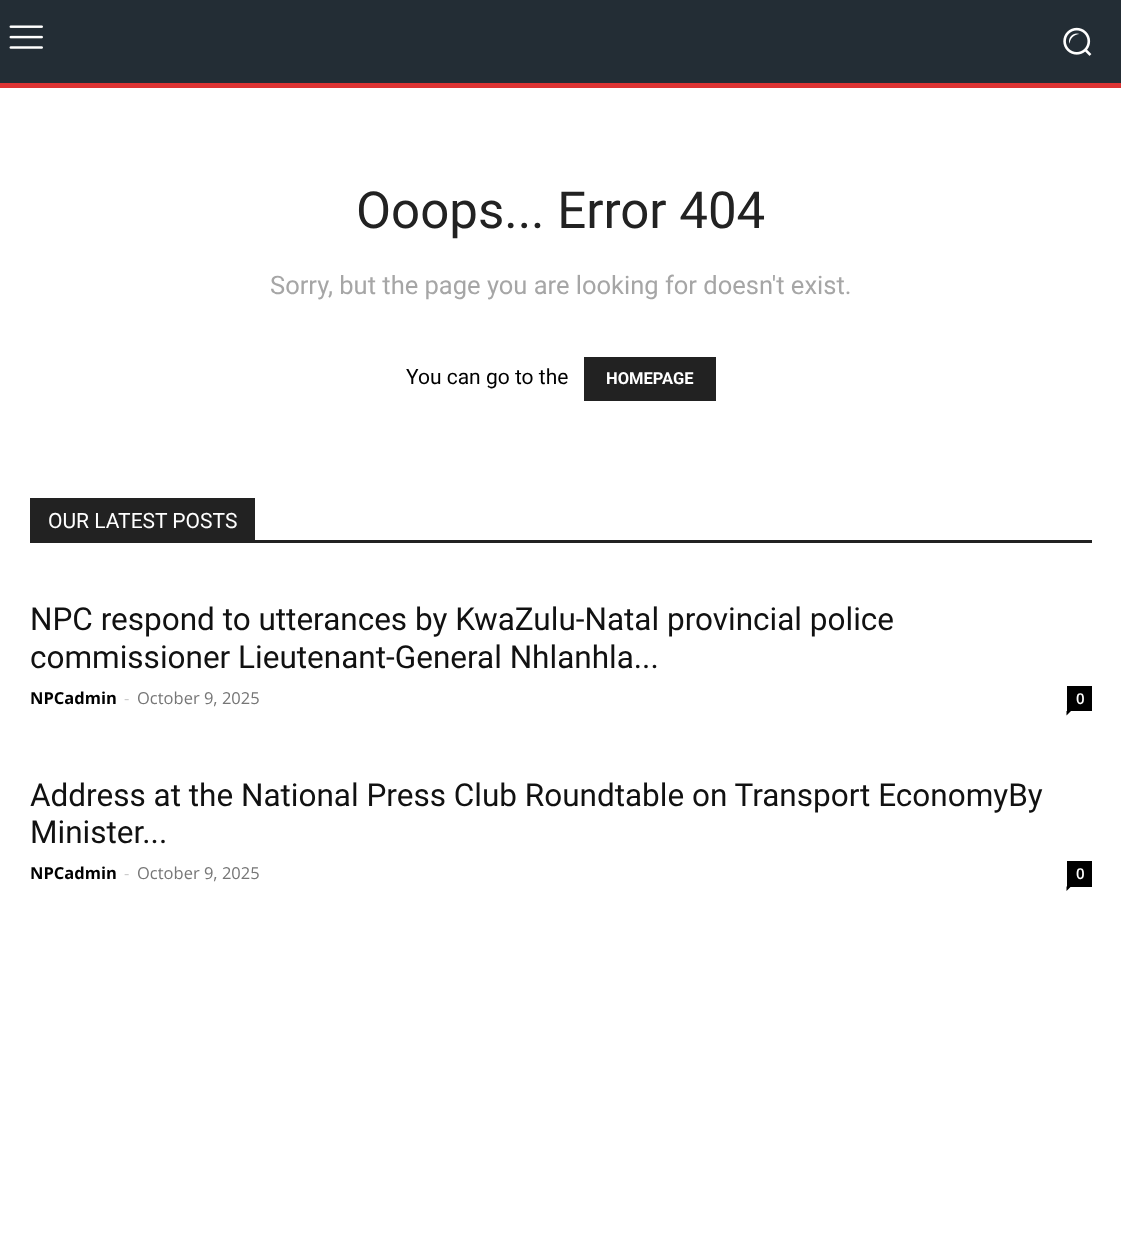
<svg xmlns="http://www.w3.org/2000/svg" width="1121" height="1260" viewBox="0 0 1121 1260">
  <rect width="100%" height="100%" fill="rgb(255,255,255)"/>
  <rect x="0" y="0" width="1121" height="83" fill="rgb(35,45,53)"/>
  <image x="9" y="25" width="34" height="24" href="pic1.png"/>
  <image x="1063" y="27" width="29" height="29" href="pic2.png"/>
  <rect x="0" y="83" width="1121" height="5" fill="rgb(221,51,51)"/>
  <text x="356" y="228" font-family="Roboto" font-size="51" fill="rgb(34,34,34)">Ooops... Error 404</text>
  <text x="270" y="294" font-family="Roboto" font-size="25.5" fill="rgb(166,166,166)">Sorry, but the page you are looking for doesn't exist.</text>
  <text x="406" y="384" font-family="Roboto" font-size="21" fill="rgb(0,0,0)">You can go to the</text>
  <rect x="584" y="357" width="132" height="44" fill="rgb(34,34,34)"/>
  <text x="606" y="384" font-family="Roboto" font-size="16.5" font-weight="bold" fill="rgb(255,255,255)">HOMEPAGE</text>
  <rect x="30" y="540" width="1062" height="3" fill="rgb(34,34,34)"/>
  <rect x="30" y="498" width="225" height="42" fill="rgb(34,34,34)"/>
  <text x="48" y="528" font-family="Roboto" font-size="21" fill="rgb(255,255,255)">OUR LATEST POSTS</text>
  <g font-family="Roboto" font-size="31.5" fill="rgb(17,17,17)">
    <text>
      <tspan x="30" y="630">NPC respond to utterances by KwaZulu-Natal provincial police</tspan>
      <tspan x="30" y="668">commissioner Lieutenant-General Nhlanhla...</tspan>
    </text>
  </g>
  <text x="30" y="704" font-family="Open Sans" font-size="16.5" font-weight="bold" fill="rgb(0,0,0)">NPCadmin</text>
  <text x="124" y="704" font-family="Open Sans" font-size="16.5" fill="rgb(204,204,204)">-</text>
  <text x="137" y="704" font-family="Open Sans" font-size="16.5" fill="rgb(118,118,118)">October 9, 2025</text>
  <rect x="1067" y="686" width="25" height="25" fill="rgb(0,0,0)"/>
  <text x="1076" y="704" font-family="Open Sans" font-size="15" font-weight="600" fill="rgb(255,255,255)">0</text>
  <path d="M1066.5 711H1071L1066.5 715.5Z" fill="rgb(0,0,0)"/>
  <g font-family="Roboto" font-size="31.5" fill="rgb(17,17,17)">
    <text>
      <tspan x="30" y="806">Address at the National Press Club Roundtable on Transport EconomyBy</tspan>
      <tspan x="30" y="843">Minister...</tspan>
    </text>
  </g>
  <text x="30" y="879" font-family="Open Sans" font-size="16.5" font-weight="bold" fill="rgb(0,0,0)">NPCadmin</text>
  <text x="124" y="879" font-family="Open Sans" font-size="16.5" fill="rgb(204,204,204)">-</text>
  <text x="137" y="879" font-family="Open Sans" font-size="16.5" fill="rgb(118,118,118)">October 9, 2025</text>
  <rect x="1067" y="861" width="25" height="26" fill="rgb(0,0,0)"/>
  <text x="1076" y="879" font-family="Open Sans" font-size="15" font-weight="600" fill="rgb(255,255,255)">0</text>
  <path d="M1066.5 886.5H1071L1066.5 891Z" fill="rgb(0,0,0)"/>
</svg>
